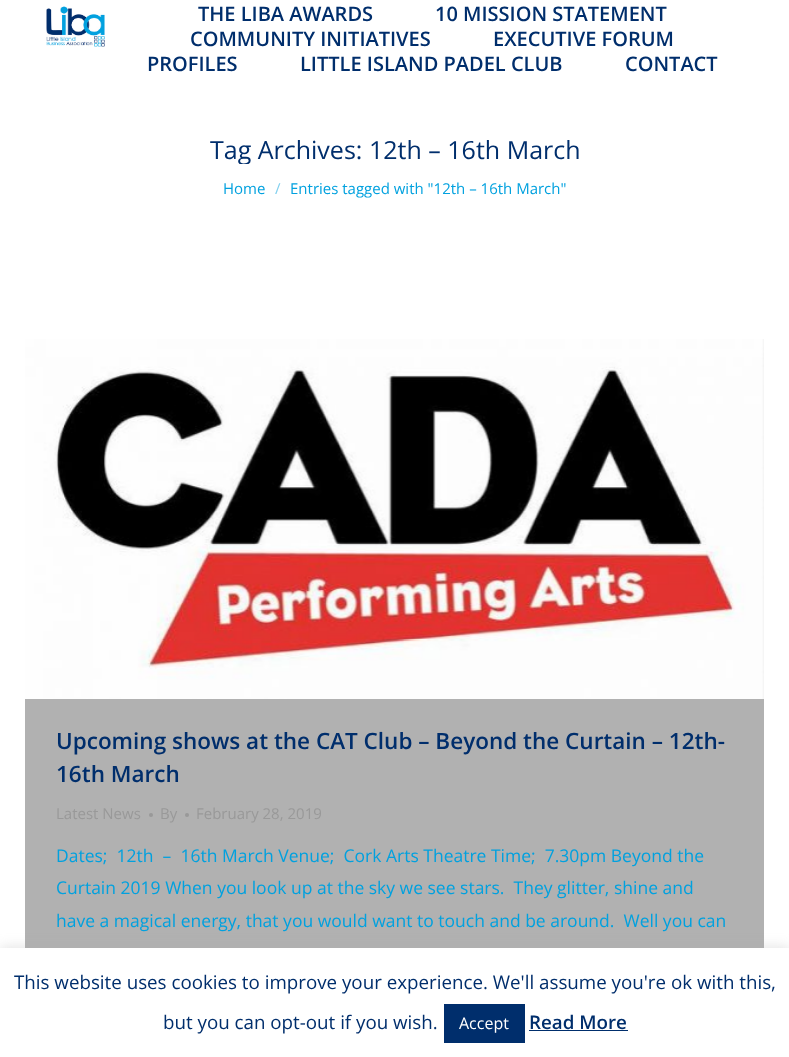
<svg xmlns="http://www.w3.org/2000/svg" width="789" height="1057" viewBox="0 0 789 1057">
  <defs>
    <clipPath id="clip1"><rect x="210" y="139" width="370" height="25"/></clipPath>
  </defs>
  <rect width="100%" height="100%" fill="rgb(255,255,255)"/>
  <image x="46" y="6" width="59" height="41" href="pic1.png"/>
  <g font-family="Open Sans" font-size="20" font-weight="600" fill="rgb(0,46,108)">
    <text x="198" y="21">THE LIBA AWARDS</text>
    <text x="435" y="21">10 MISSION STATEMENT</text>
    <text x="190" y="46">COMMUNITY INITIATIVES</text>
    <text x="493" y="46">EXECUTIVE FORUM</text>
    <text x="147" y="71">PROFILES</text>
    <text x="300" y="71">LITTLE ISLAND PADEL CLUB</text>
    <text x="625" y="71">CONTACT</text>
  </g>
  <g clip-path="url(#clip1)">
    <text x="210" y="159" font-family="Open Sans" font-size="25" fill="rgb(0,46,108)">Tag Archives:</text>
  </g>
  <text x="369" y="159" font-family="Open Sans" font-size="25" fill="rgb(0,46,108)">12th – 16th March</text>
  <text x="223" y="194" font-family="Open Sans" font-size="15" fill="rgb(1,161,223)">Home</text>
  <text x="275" y="194" font-family="Open Sans" font-size="15" fill="rgb(128,208,239)">/</text>
  <text x="290" y="194" font-family="Open Sans" font-size="15" fill="rgb(1,161,223)">Entries tagged with "12th – 16th March"</text>
  <rect x="25" y="339" width="739" height="609" fill="rgb(177,177,177)"/>
  <image x="25" y="339" width="739" height="360" href="pic2.png"/>
  <g font-family="Open Sans" font-size="22.5" font-weight="600" fill="rgb(0,46,108)">
    <text>
      <tspan x="56" y="749">Upcoming shows at the CAT Club – Beyond the Curtain – 12th-</tspan>
      <tspan x="56" y="782">16th March</tspan>
    </text>
  </g>
  <text x="56" y="819" font-family="Open Sans" font-size="15" fill="rgb(153,153,153)">Latest News</text>
  <circle cx="151" cy="815" r="2" fill="rgb(153,153,153)"/>
  <text x="160" y="819" font-family="Open Sans" font-size="15" fill="rgb(153,153,153)">By</text>
  <circle cx="187" cy="815" r="2" fill="rgb(153,153,153)"/>
  <text x="196" y="819" font-family="Open Sans" font-size="15" fill="rgb(153,153,153)">February 28, 2019</text>
  <g font-family="Open Sans" font-size="17.5" fill="rgb(1,161,223)">
    <text xml:space="preserve"><tspan x="56" y="862">Dates;  12th  –  16th March Venue;  Cork Arts Theatre Time;  7.30pm Beyond the</tspan><tspan x="56" y="894">Curtain 2019 When you look up at the sky we see stars.  They glitter, shine and</tspan><tspan x="56" y="927">have a magical energy, that you would want to touch and be around.  Well you can</tspan></text>
  </g>
  <rect x="0" y="946" width="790" height="110" fill="rgba(172,171,171,0.3)" filter="blur(6px)"/>
  <rect x="0" y="948" width="789" height="109" fill="rgb(255,255,255)"/>
  <g font-family="Open Sans" font-size="18.75" fill="rgb(0,46,108)">
    <text x="14" y="989">This website uses cookies to improve your experience. We'll assume you're ok with this,</text>
    <text x="163" y="1029">but you can opt-out if you wish.</text>
  </g>
  <rect x="444" y="1004" width="81" height="39" fill="rgb(0,46,108)"/>
  <text x="459" y="1029" font-family="Open Sans" font-size="16" fill="rgb(255,255,255)">Accept</text>
  <text x="529" y="1029" font-family="Open Sans" font-size="18.75" font-weight="600" fill="rgb(0,46,108)">Read More</text>
  <rect x="529" y="1030" width="99" height="1" fill="rgb(0,46,108)"/>
</svg>
